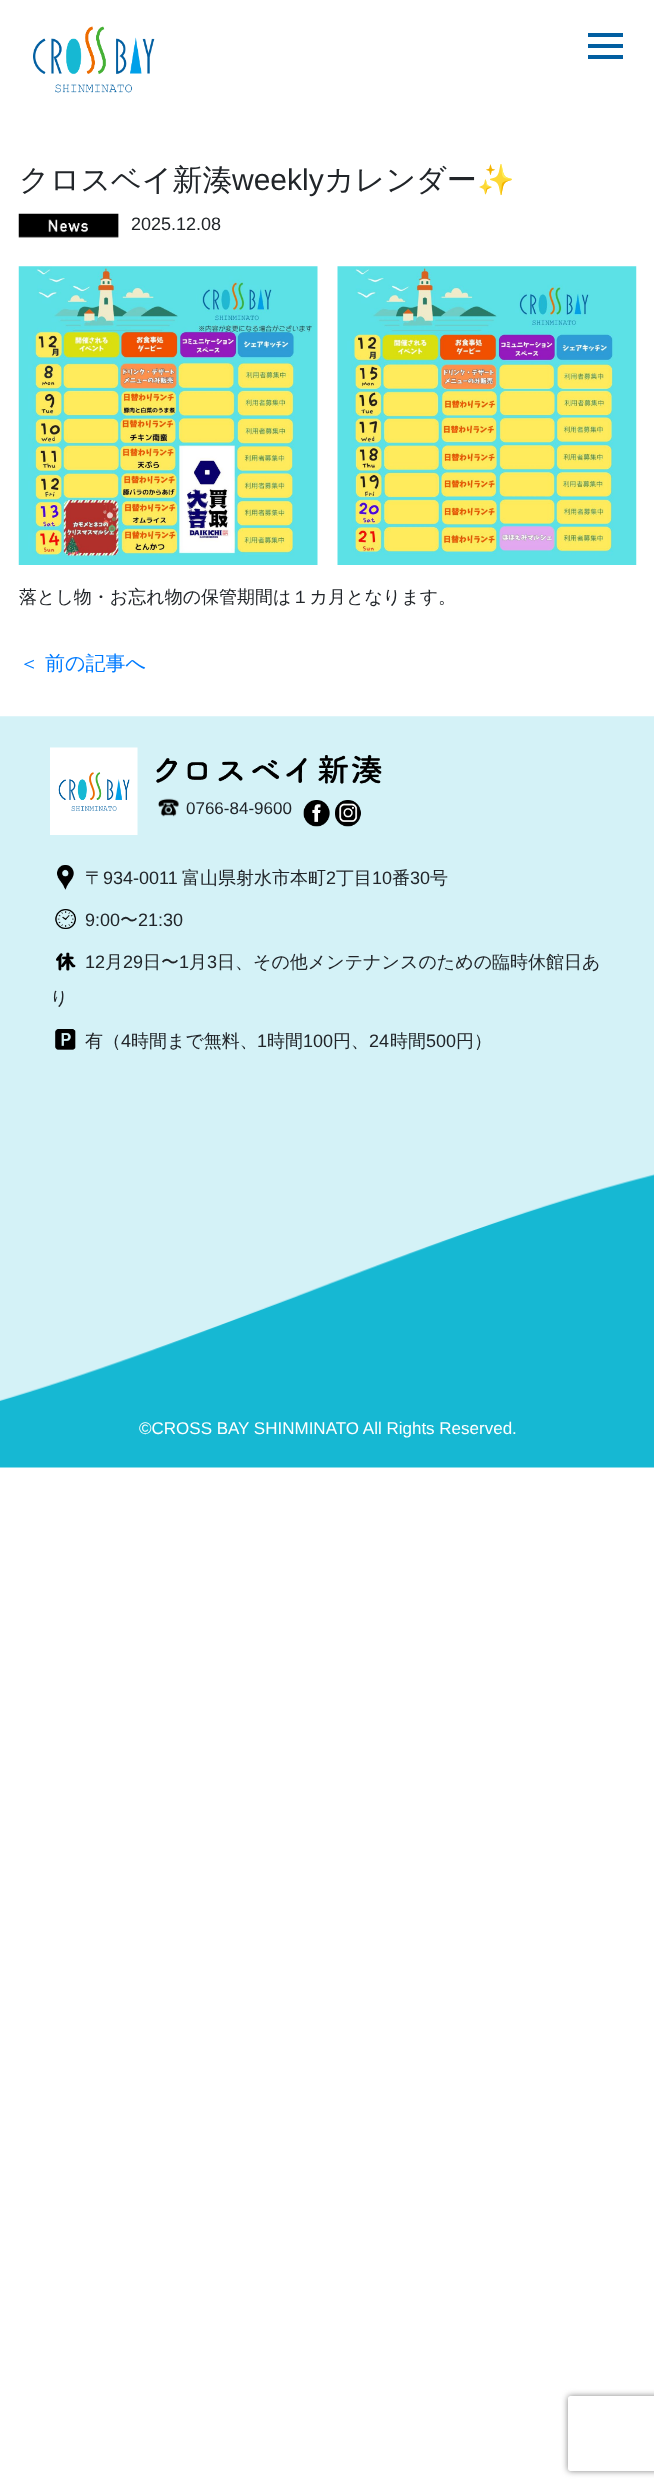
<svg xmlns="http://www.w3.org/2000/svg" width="654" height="2488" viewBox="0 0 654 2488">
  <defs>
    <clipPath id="clip1"><path d="M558 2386H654V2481H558ZM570.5 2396H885.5C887 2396 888 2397 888 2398.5V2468.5C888 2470 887 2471 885.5 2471H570.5C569 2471 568 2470 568 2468.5V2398.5C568 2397 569 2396 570.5 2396Z" clip-rule="evenodd"/></clipPath>
  </defs>
  <rect width="100%" height="100%" fill="rgb(255,255,255)"/>
  <image x="33" y="26" width="122" height="67" href="pic1.png"/>
  <rect x="588" y="33" width="35" height="4" fill="rgb(2,95,161)"/>
  <rect x="588" y="44" width="35" height="4" fill="rgb(2,95,161)"/>
  <rect x="588" y="55" width="35" height="4" fill="rgb(2,95,161)"/>
  <text x="19" y="190" font-family="WenQuanYi Zen Hei" font-size="30" font-weight="500" fill="rgb(33,37,41)">クロスベイ新湊</text>
  <text x="232" y="190" font-family="Liberation Sans" font-size="30" fill="rgb(33,37,41)">weekly</text>
  <text x="324" y="190" font-family="WenQuanYi Zen Hei" font-size="30" font-weight="500" fill="rgb(33,37,41)">カレンダー</text>
  <text x="477" y="190" font-family="Noto Color Emoji" font-size="30" fill="rgb(33,37,41)">✨</text>
  <image x="18" y="213" width="101" height="25" href="pic2.png"/>
  <text x="131" y="230" font-family="Liberation Sans" font-size="18" fill="rgb(33,37,41)">2025.12.08</text>
  <image x="18" y="266" width="300" height="299" href="pic3.png"/>
  <image x="337" y="266" width="300" height="299" href="pic4.png"/>
  <text x="19" y="603" font-family="WenQuanYi Zen Hei" font-size="18" font-weight="500" fill="rgb(33,37,41)">落とし物・お忘れ物の保管期間は１カ月となります。</text>
  <text x="19" y="670" font-family="WenQuanYi Zen Hei" font-size="20" font-weight="500" fill="rgb(0,123,255)">＜ 前の記事へ</text>
  <image x="0" y="716" width="654" height="752" href="pic5.png"/>
  <image x="50" y="747" width="88" height="88" href="pic6.png"/>
  <image x="156" y="755" width="226" height="29" href="pic7.png"/>
  <image x="158" y="798" width="21" height="19" href="pic8.png"/>
  <text x="186" y="814" font-family="Liberation Sans" font-size="17" fill="rgb(33,37,41)">0766-84-9600</text>
  <image x="303" y="800" width="27" height="27" href="pic9.png"/>
  <image x="335" y="800" width="26" height="27" href="pic10.png"/>
  <image x="57" y="865" width="17" height="25" href="pic11.png"/>
  <text x="85" y="884" font-family="WenQuanYi Zen Hei" font-size="18" font-weight="500" fill="rgb(33,37,41)">〒</text>
  <text x="103" y="884" font-family="Liberation Sans" font-size="18" fill="rgb(33,37,41)">934-0011</text>
  <text x="182" y="884" font-family="WenQuanYi Zen Hei" font-size="18" font-weight="500" fill="rgb(33,37,41)">富山県射水市本町</text>
  <text x="326" y="884" font-family="Liberation Sans" font-size="18" fill="rgb(33,37,41)">2</text>
  <text x="336" y="884" font-family="WenQuanYi Zen Hei" font-size="18" font-weight="500" fill="rgb(33,37,41)">丁目</text>
  <text x="372" y="884" font-family="Liberation Sans" font-size="18" fill="rgb(33,37,41)">10</text>
  <text x="392" y="884" font-family="WenQuanYi Zen Hei" font-size="18" font-weight="500" fill="rgb(33,37,41)">番</text>
  <text x="410" y="884" font-family="Liberation Sans" font-size="18" fill="rgb(33,37,41)">30</text>
  <text x="430" y="884" font-family="WenQuanYi Zen Hei" font-size="18" font-weight="500" fill="rgb(33,37,41)">号</text>
  <image x="55" y="909" width="21" height="20" href="pic12.png"/>
  <text x="85" y="926" font-family="Liberation Sans" font-size="18" fill="rgb(33,37,41)">9:00</text>
  <text x="120" y="926" font-family="WenQuanYi Zen Hei" font-size="18" font-weight="500" fill="rgb(33,37,41)">〜</text>
  <text x="138" y="926" font-family="Liberation Sans" font-size="18" fill="rgb(33,37,41)">21:30</text>
  <image x="56" y="952" width="20" height="19" href="pic13.png"/>
  <text x="85" y="968" font-family="Liberation Sans" font-size="18" fill="rgb(33,37,41)">12</text>
  <text x="105" y="968" font-family="WenQuanYi Zen Hei" font-size="18" font-weight="500" fill="rgb(33,37,41)">月</text>
  <text x="123" y="968" font-family="Liberation Sans" font-size="18" fill="rgb(33,37,41)">29</text>
  <text x="143" y="968" font-family="WenQuanYi Zen Hei" font-size="18" font-weight="500" fill="rgb(33,37,41)">日〜</text>
  <text x="179" y="968" font-family="Liberation Sans" font-size="18" fill="rgb(33,37,41)">1</text>
  <text x="189" y="968" font-family="WenQuanYi Zen Hei" font-size="18" font-weight="500" fill="rgb(33,37,41)">月</text>
  <text x="207" y="968" font-family="Liberation Sans" font-size="18" fill="rgb(33,37,41)">3</text>
  <g font-family="WenQuanYi Zen Hei" font-size="18" font-weight="500" fill="rgb(33,37,41)">
    <text x="217" y="968">日、その他メンテナンスのための臨時休館日あ</text>
    <text x="50" y="1004">り</text>
  </g>
  <image x="55" y="1029" width="21" height="21" href="pic14.png"/>
  <text x="85" y="1047" font-family="WenQuanYi Zen Hei" font-size="18" font-weight="500" fill="rgb(33,37,41)">有（</text>
  <text x="121" y="1047" font-family="Liberation Sans" font-size="18" fill="rgb(33,37,41)">4</text>
  <text x="131" y="1047" font-family="WenQuanYi Zen Hei" font-size="18" font-weight="500" fill="rgb(33,37,41)">時間まで無料、</text>
  <text x="257" y="1047" font-family="Liberation Sans" font-size="18" fill="rgb(33,37,41)">1</text>
  <text x="267" y="1047" font-family="WenQuanYi Zen Hei" font-size="18" font-weight="500" fill="rgb(33,37,41)">時間</text>
  <text x="303" y="1047" font-family="Liberation Sans" font-size="18" fill="rgb(33,37,41)">100</text>
  <text x="333" y="1047" font-family="WenQuanYi Zen Hei" font-size="18" font-weight="500" fill="rgb(33,37,41)">円、</text>
  <text x="369" y="1047" font-family="Liberation Sans" font-size="18" fill="rgb(33,37,41)">24</text>
  <text x="390" y="1047" font-family="WenQuanYi Zen Hei" font-size="18" font-weight="500" fill="rgb(33,37,41)">時間</text>
  <text x="426" y="1047" font-family="Liberation Sans" font-size="18" fill="rgb(33,37,41)">500</text>
  <text x="456" y="1047" font-family="WenQuanYi Zen Hei" font-size="18" font-weight="500" fill="rgb(33,37,41)">円）</text>
  <text x="139" y="1434" font-family="Liberation Sans" font-size="17" fill="rgb(255,255,255)">©CROSS BAY SHINMINATO All Rights Reserved.</text>
  <g clip-path="url(#clip1)">
    <rect x="568" y="2396" width="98" height="75" rx="2.5" fill="rgb(128,128,128)" filter="blur(3px)"/>
  </g>
</svg>
